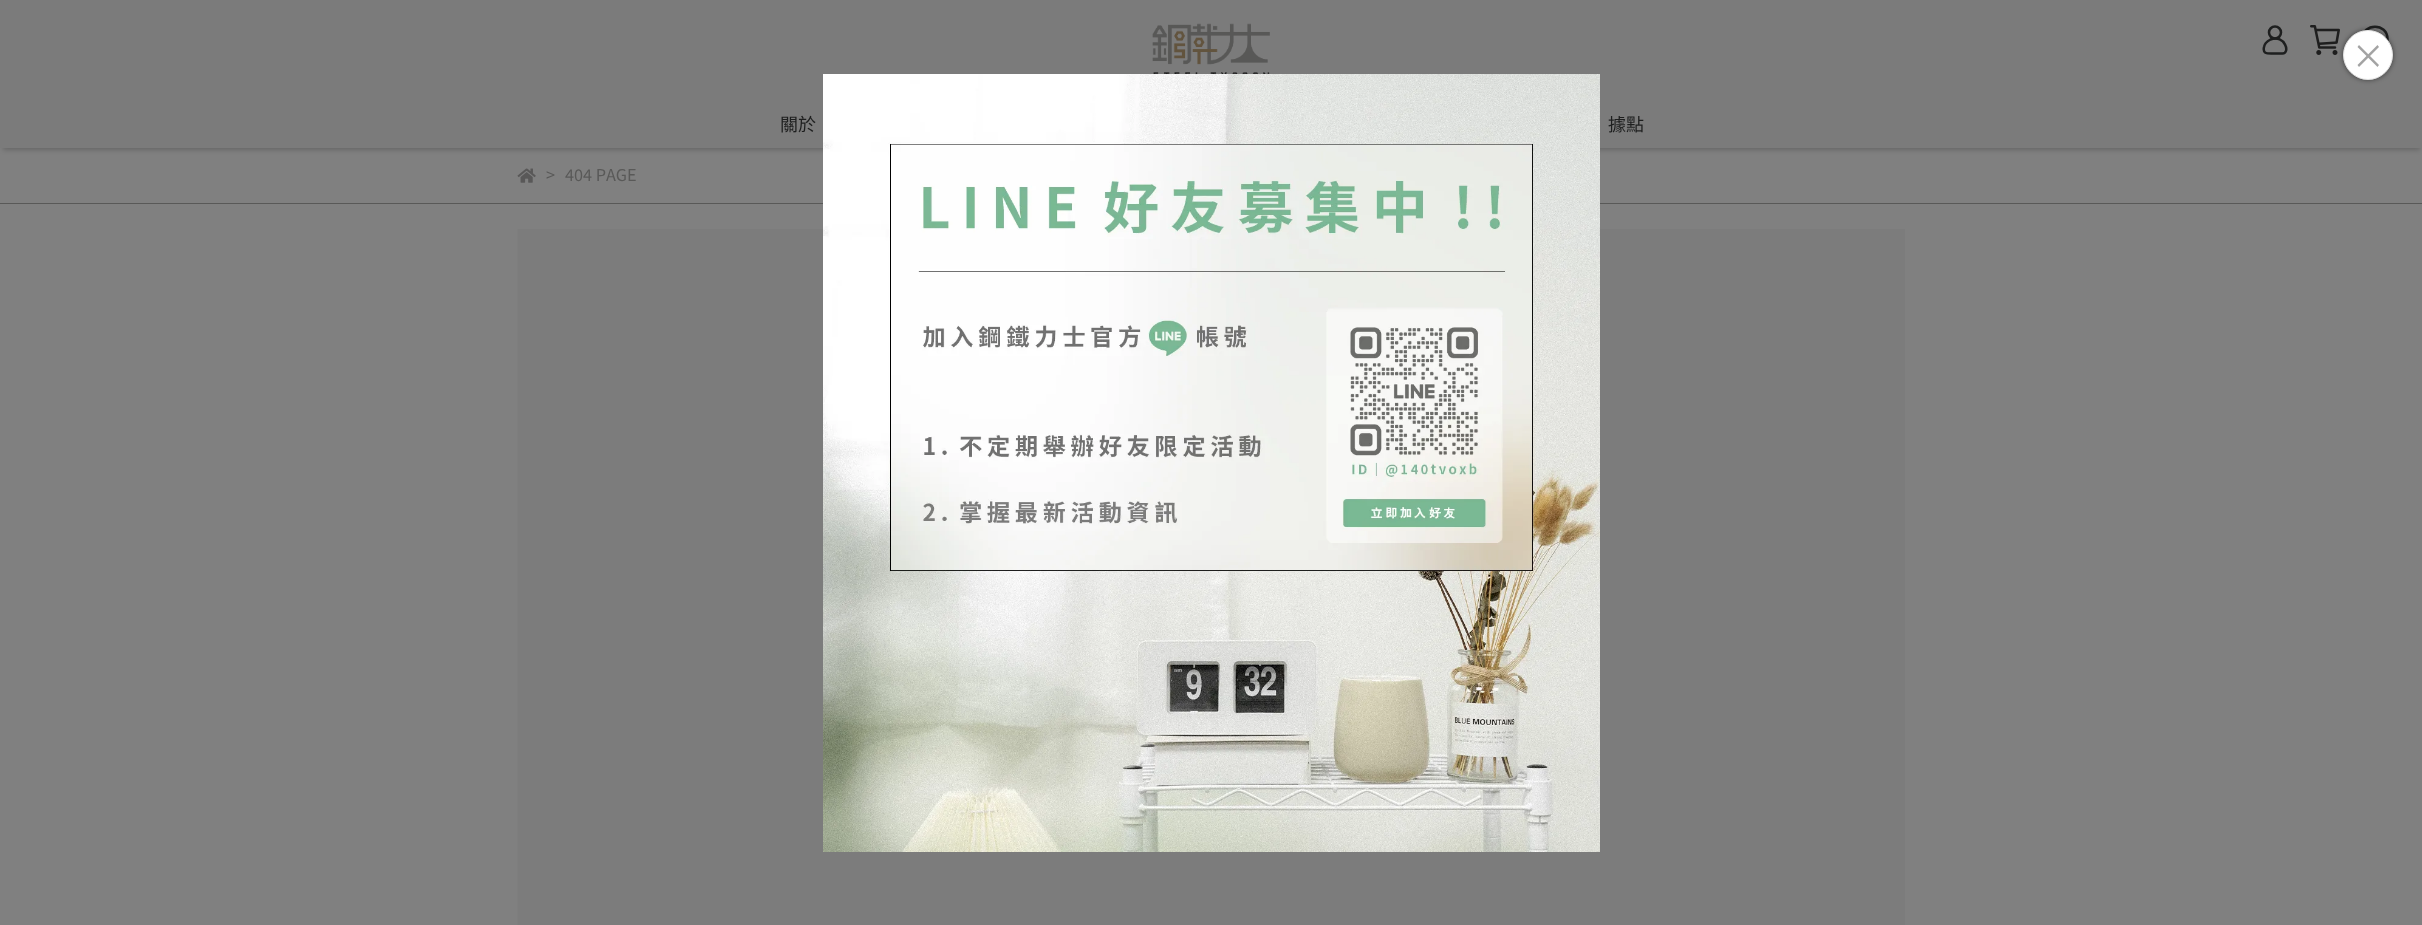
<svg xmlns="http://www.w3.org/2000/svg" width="2422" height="925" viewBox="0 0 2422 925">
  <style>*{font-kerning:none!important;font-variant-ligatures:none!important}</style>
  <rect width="100%" height="100%" fill="rgb(128,128,128)"/>
  <rect x="0" y="0" width="2422" height="101" fill="rgb(123,123,123)"/>
  <image x="2310" y="25" width="30" height="30" href="pic3.png"/>
  <path d="M2387.5 39C2387.5 55 2362.5 55 2362.5 39C2362.5 22.5 2387.5 22.5 2387.5 39Z" fill="none" stroke="rgb(30,31,31)" stroke-width="2.5" stroke-linecap="round" stroke-linejoin="round"/>
  <rect x="2343" y="30" width="50" height="50" rx="25" fill="rgba(0,0,0,0.5)" filter="blur(2.5px)"/>
  <circle cx="2368" cy="55" r="24.5" fill="rgb(255,255,255)" stroke="rgb(226,226,226)"/>
  <path d="M2359 45L2379 65L2377.5 67L2357.5 47Z" fill="rgb(163,163,163)"/>
  <path d="M2357.5 65L2377.5 45L2379 47L2359 67Z" fill="rgb(163,163,163)"/>
  <rect x="3" y="109" width="2417" height="41" fill="rgba(0,0,0,0.2)" filter="blur(2.5px)"/>
  <rect x="0" y="101" width="2422" height="47" fill="rgb(123,123,123)"/>
  <rect x="0" y="203" width="2422" height="1" fill="rgb(89,89,88)"/>
  <image x="517" y="229" width="1388" height="696" href="pic5.png"/>
  <image x="823" y="74" width="777" height="778" href="pic1.png"/>
  <image x="1152" y="23" width="118" height="51" href="pic2.png"/>
  <circle cx="2275" cy="32.5" r="6" fill="none" stroke="rgb(30,31,31)" stroke-width="2.5"/>
  <path d="M2282 53.5H2272.5C2267 53.5 2262.5 54 2264 47C2264.5 43.5 2267.5 41 2270.5 39.5C2285 34 2291 54 2282 53.5Z" fill="none" stroke="rgb(30,31,31)" stroke-width="2.5"/>
  <g font-family="Noto Sans TC" font-size="18" fill="rgb(30,31,31)">
    <text x="780" y="131">關於</text>
    <text x="1608" y="131">據點</text>
  </g>
  <image x="517" y="168" width="19" height="15" href="pic4.png"/>
  <g font-family="Noto Sans TC" font-size="16.25" fill="rgb(89,89,88)">
    <text x="546" y="181">&gt;</text>
    <text x="565" y="181">404 PAGE</text>
  </g>
</svg>
